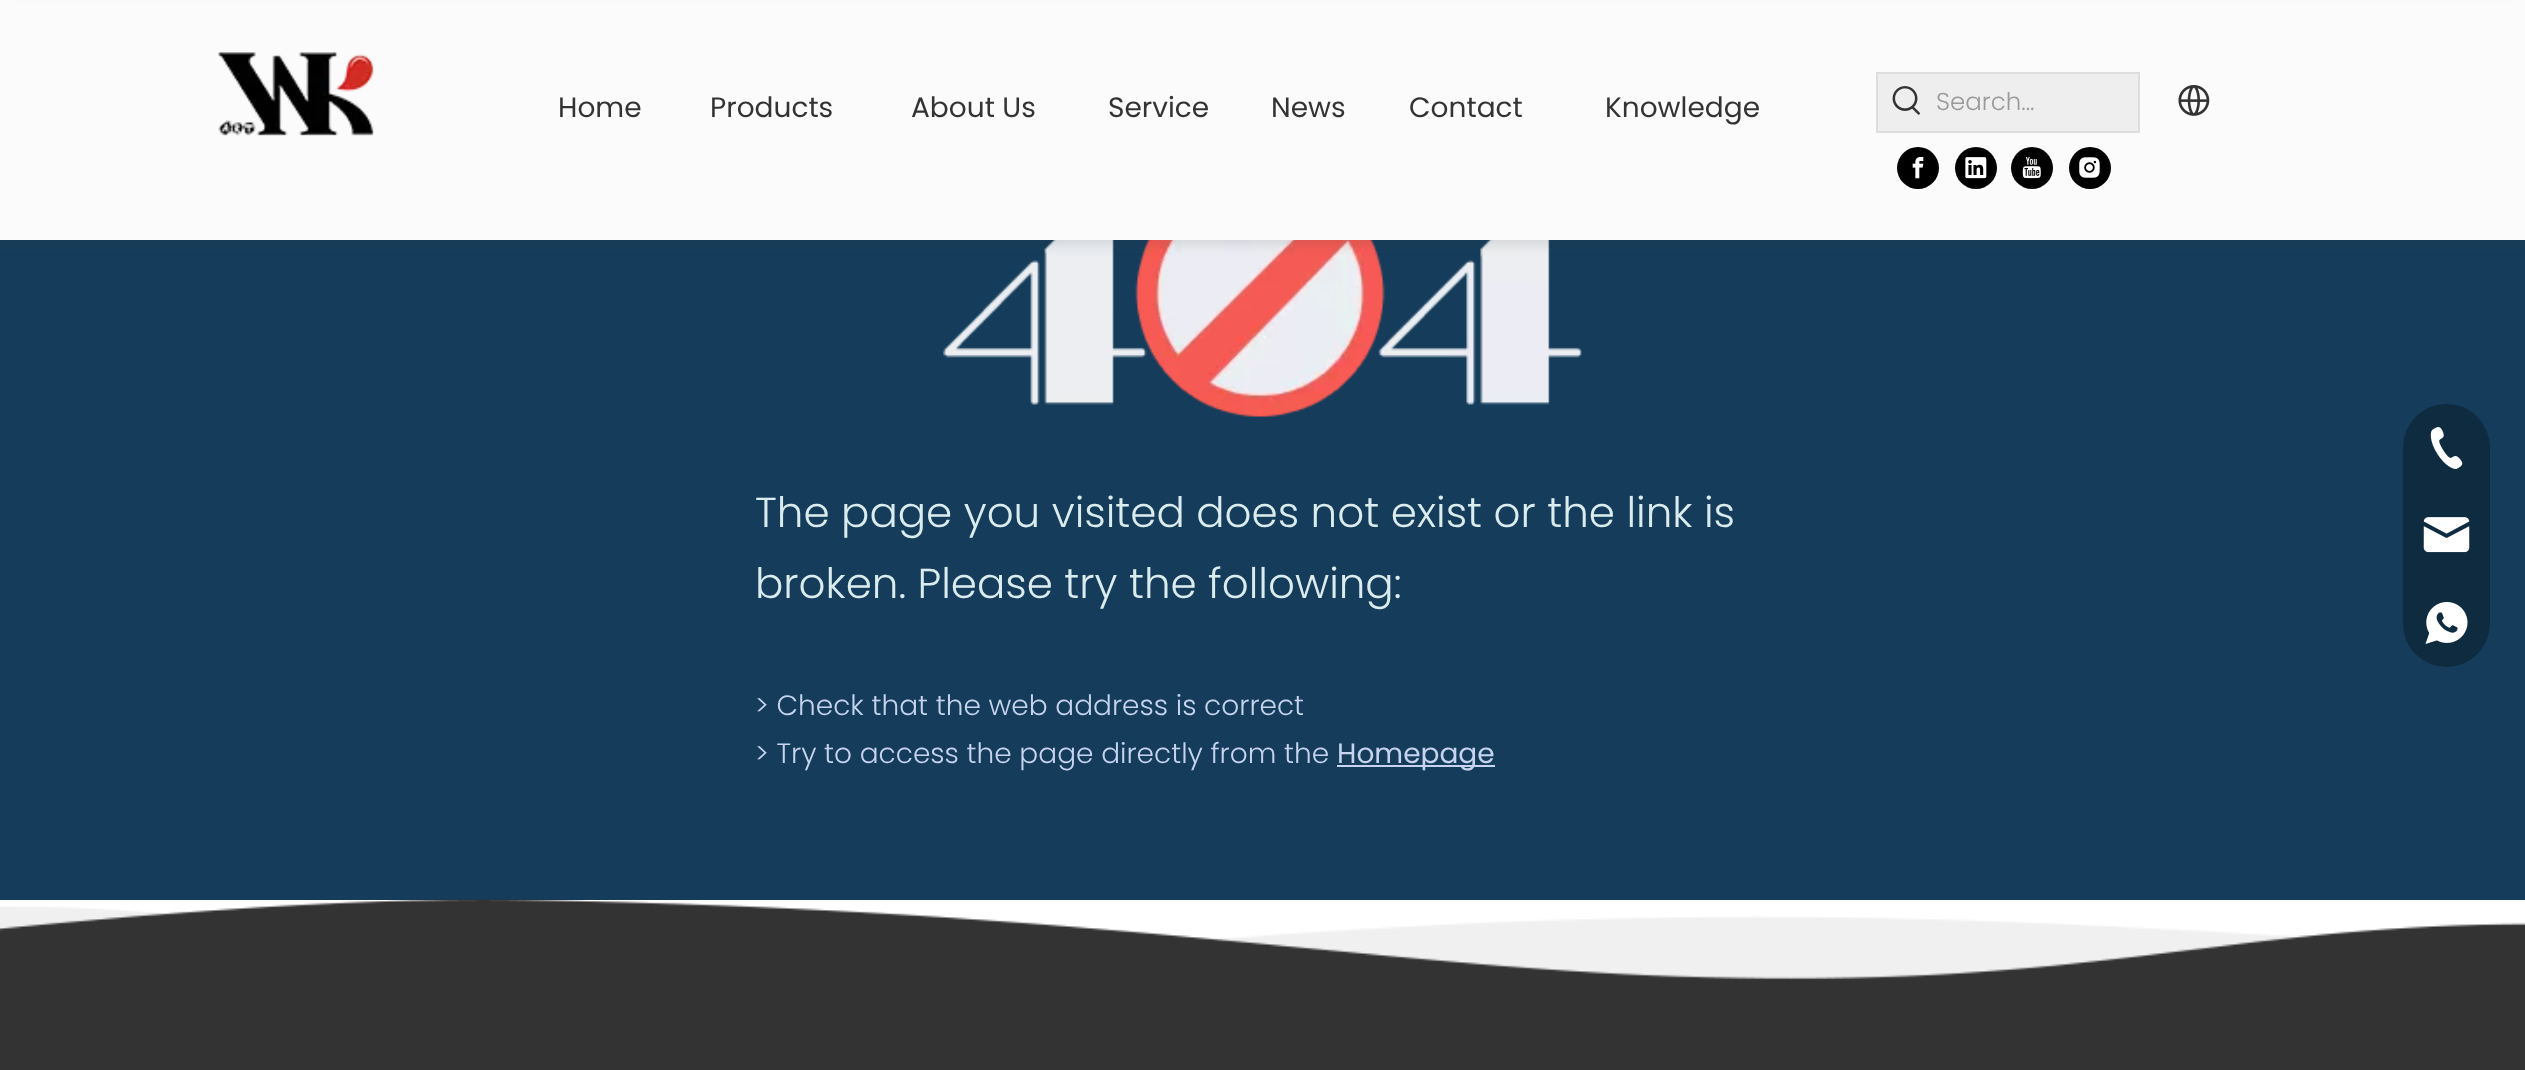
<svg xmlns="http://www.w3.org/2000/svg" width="2525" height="1070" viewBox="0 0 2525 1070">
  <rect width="100%" height="100%" fill="rgb(255,255,255)"/>
  <rect x="0" y="240" width="2525" height="660" fill="rgb(21,61,91)"/>
  <image x="943" y="240" width="639" height="177" href="pic12.png"/>
  <rect x="0" y="5" width="2525" height="240" fill="rgba(51,51,51,0.12)" filter="blur(6px)"/>
  <rect x="0" y="1" width="2525" height="239" fill="rgb(251,251,251)"/>
  <image x="218" y="52" width="156" height="84" href="pic1.png"/>
  <g font-family="Poppins" font-size="28" fill="rgb(51,51,51)">
    <text x="558" y="117">Home</text>
    <text x="710" y="117">Products</text>
    <text x="911" y="117">About Us</text>
    <text x="1108" y="117">Service</text>
    <text x="1271" y="117">News</text>
    <text x="1409" y="117">Contact</text>
    <text x="1605" y="117">Knowledge</text>
  </g>
  <rect x="1877" y="73" width="262" height="59" fill="rgb(238,238,238)" stroke="rgb(221,221,221)" stroke-width="2"/>
  <image x="1892" y="86" width="28" height="29" href="pic2.png"/>
  <text x="1936" y="110" font-family="Poppins" font-size="24.5" font-weight="300" fill="rgb(153,153,153)">Search...</text>
  <circle cx="1918" cy="168" r="21" fill="rgb(0,0,0)"/>
  <image x="1912" y="157" width="12" height="22" href="pic3.png"/>
  <circle cx="1976" cy="168" r="21" fill="rgb(0,0,0)"/>
  <image x="1965" y="157" width="22" height="22" href="pic4.png"/>
  <circle cx="2032" cy="168" r="21" fill="rgb(0,0,0)"/>
  <image x="2022" y="157" width="19" height="22" href="pic5.png"/>
  <circle cx="2090" cy="168" r="21" fill="rgb(0,0,0)"/>
  <image x="2079" y="157" width="21" height="21" href="pic6.png"/>
  <image x="2178" y="85" width="32" height="31" href="pic7.png"/>
  <image x="0" y="899" width="2525" height="171" href="pic8.png"/>
  <rect x="2403" y="404" width="87" height="263" rx="43.5" fill="rgb(15,43,64)"/>
  <image x="2430" y="427" width="33" height="42" href="pic9.png"/>
  <image x="2423" y="517" width="47" height="36" href="pic10.png"/>
  <image x="2425" y="602" width="43" height="42" href="pic11.png"/>
  <g font-family="Poppins" font-size="42" font-weight="300" fill="rgb(218,236,238)">
    <text>
      <tspan x="755" y="527">The page you visited does not exist or the link is</tspan>
      <tspan x="755" y="598">broken. Please try the following:</tspan>
    </text>
  </g>
  <g font-family="Poppins" font-size="28" font-weight="300" fill="rgb(198,212,239)">
    <text>
      <tspan x="755" y="715">&gt; Check that the web address is correct</tspan>
      <tspan x="755" y="763">&gt; Try to access the page directly from the</tspan>
    </text>
  </g>
  <rect x="1337" y="765" width="158" height="2" fill="rgb(198,212,239)"/>
  <text x="1337" y="763" font-family="Poppins" font-size="28" fill="rgb(198,212,239)">Homepage</text>
</svg>
